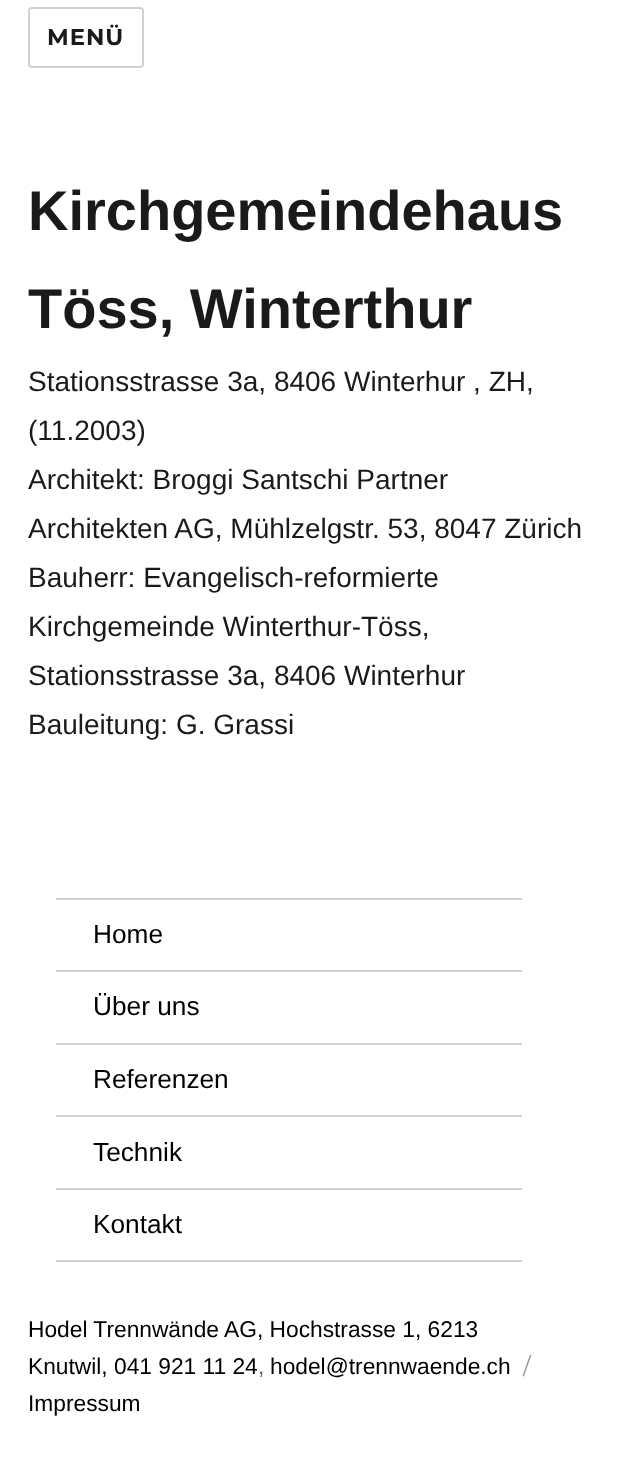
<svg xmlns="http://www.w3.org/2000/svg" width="620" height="1470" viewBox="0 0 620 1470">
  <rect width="100%" height="100%" fill="rgb(255,255,255)"/>
  <rect x="29" y="8" width="114" height="59" rx="3" fill="none" stroke="rgb(209,209,209)" stroke-width="2"/>
  <text x="47" y="45" font-family="Montserrat" font-size="22.75" font-weight="bold" letter-spacing="1" fill="rgb(26,26,26)">MENÜ</text>
  <g font-family="Liberation Sans" font-size="56" font-weight="bold" fill="rgb(26,26,26)">
    <text>
      <tspan x="28" y="230">Kirchgemeindehaus</tspan>
      <tspan x="28" y="328">Töss, Winterthur</tspan>
    </text>
  </g>
  <g font-family="Liberation Sans" font-size="28" fill="rgb(26,26,26)">
    <text>
      <tspan x="28" y="391">Stationsstrasse 3a, 8406 Winterhur , ZH,</tspan>
      <tspan x="28" y="440">(11.2003)</tspan>
      <tspan x="28" y="489">Architekt: Broggi Santschi Partner</tspan>
      <tspan x="28" y="538">Architekten AG, Mühlzelgstr. 53, 8047 Zürich</tspan>
      <tspan x="28" y="587">Bauherr: Evangelisch-reformierte</tspan>
      <tspan x="28" y="636">Kirchgemeinde Winterthur-Töss,</tspan>
      <tspan x="28" y="685">Stationsstrasse 3a, 8406 Winterhur</tspan>
      <tspan x="28" y="734">Bauleitung: G. Grassi</tspan>
    </text>
  </g>
  <rect x="56" y="1260" width="466" height="2" fill="rgb(209,209,209)"/>
  <rect x="56" y="898" width="466" height="2" fill="rgb(209,209,209)"/>
  <text x="93" y="943" font-family="Liberation Sans" font-size="26.25" fill="rgb(0,0,0)">Home</text>
  <rect x="56" y="970" width="466" height="2" fill="rgb(209,209,209)"/>
  <text x="93" y="1015" font-family="Liberation Sans" font-size="26.25" fill="rgb(0,0,0)">Über uns</text>
  <rect x="56" y="1043" width="466" height="2" fill="rgb(209,209,209)"/>
  <text x="93" y="1088" font-family="Liberation Sans" font-size="26.25" fill="rgb(0,0,0)">Referenzen</text>
  <rect x="56" y="1115" width="466" height="2" fill="rgb(209,209,209)"/>
  <text x="93" y="1161" font-family="Liberation Sans" font-size="26.25" fill="rgb(0,0,0)">Technik</text>
  <rect x="56" y="1188" width="466" height="2" fill="rgb(209,209,209)"/>
  <text x="93" y="1233" font-family="Liberation Sans" font-size="26.25" fill="rgb(0,0,0)">Kontakt</text>
  <g font-family="Liberation Sans" font-size="22.75" fill="rgb(0,0,0)">
    <text>
      <tspan x="28" y="1337">Hodel Trennwände AG, Hochstrasse 1, 6213</tspan>
      <tspan x="28" y="1374">Knutwil, 041 921 11 24</tspan>
    </text>
  </g>
  <text x="258" y="1374" font-family="Liberation Sans" font-size="22.75" fill="rgb(104,104,104)">,</text>
  <text x="270" y="1374" font-family="Liberation Sans" font-size="22.75" fill="rgb(0,0,0)">hodel@trennwaende.ch</text>
  <text x="523" y="1374" font-family="Montserrat" font-size="22.75" fill="rgb(149,149,149)">/</text>
  <text x="28" y="1411" font-family="Liberation Sans" font-size="22.75" fill="rgb(0,0,0)">Impressum</text>
</svg>
